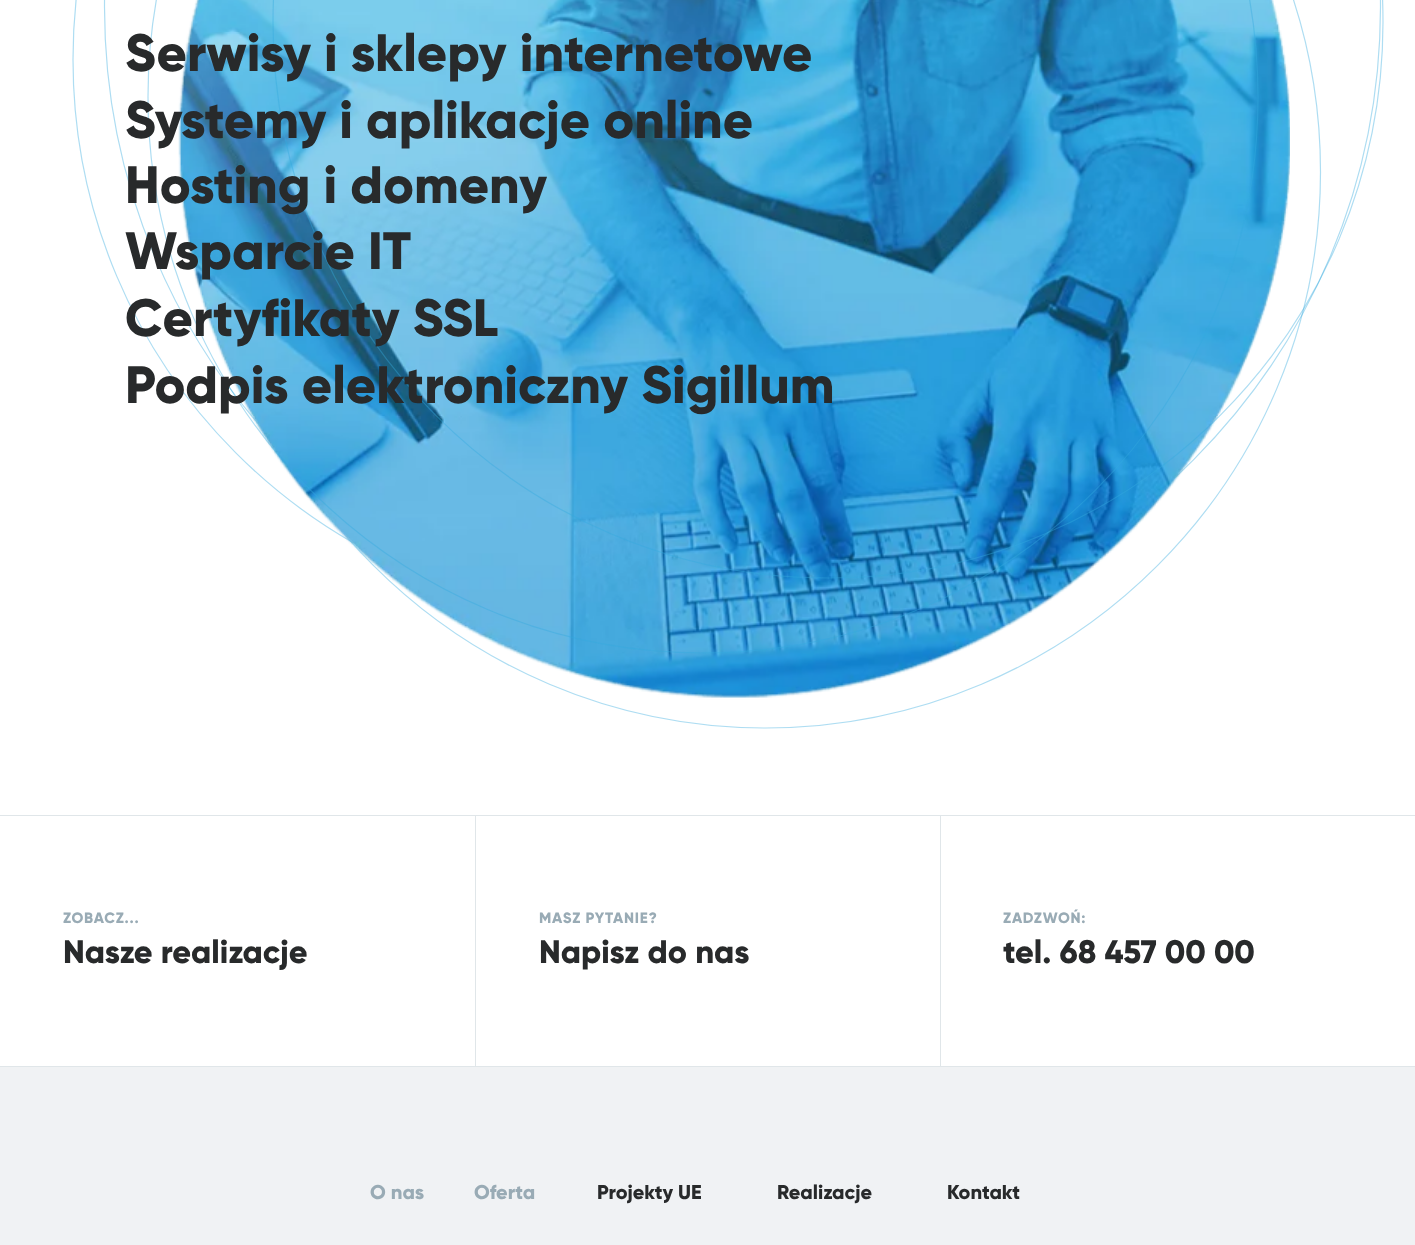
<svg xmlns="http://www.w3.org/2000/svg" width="1415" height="1245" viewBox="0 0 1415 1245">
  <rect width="100%" height="100%" fill="rgb(255,255,255)"/>
  <path d="M742.5-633C1095-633 1380.5-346.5 1380.5 7C1380.5 360.5 1095 647 742.5 647C390 647 104.5 360.5 104.5 7C104.5-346.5 390-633 742.5-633Z" fill="none" stroke="rgb(174,221,242)" stroke-width="1.2"/>
  <path d="M628-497C934.5-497 1183-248 1183 59.5C1183 366.5 934.5 615.5 628 615.5C321.5 615.5 73 366.5 73 59.5C73-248 321.5-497 628-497Z" fill="none" stroke="rgba(52,171,223,0.4)" stroke-width="1.2"/>
  <path d="M765.5-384.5C1072-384.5 1320.5-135.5 1320.5 172C1320.5 479 1072 728 765.5 728C459 728 210.5 479 210.5 172C210.5-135.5 459-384.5 765.5-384.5Z" fill="none" stroke="rgba(52,171,223,0.4)" stroke-width="1.2"/>
  <image x="178" y="0" width="1112" height="698" href="pic1.png"/>
  <path d="M828-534.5C1134.5-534.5 1383-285.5 1383 22C1383 329 1134.5 578 828 578C521.5 578 273 329 273 22C273-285.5 521.5-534.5 828-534.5Z" fill="none" stroke="rgba(52,171,223,0.4)" stroke-width="1.2"/>
  <path d="M703-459.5C1009.5-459.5 1258-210.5 1258 97C1258 404 1009.5 653 703 653C396.5 653 148 404 148 97C148-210.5 396.5-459.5 703-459.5Z" fill="none" stroke="rgba(52,171,223,0.4)" stroke-width="1.2"/>
  <g font-family="Gilroy" font-size="52.5" font-weight="800" fill="rgb(40,42,43)">
    <text x="125" y="71">Serwisy</text>
    <text x="324" y="71">i sklepy internetowe</text>
    <text>
      <tspan x="125" y="138">Systemy i aplikacje online</tspan>
      <tspan x="125" y="203">Hosting i domeny</tspan>
      <tspan x="125" y="269">Wsparcie IT</tspan>
      <tspan x="125" y="336">Certyfikaty SSL</tspan>
      <tspan x="125" y="403">Podpis elektroniczny Sigillum</tspan>
    </text>
  </g>
  <rect x="0" y="815" width="1415" height="1" fill="rgb(224,230,233)"/>
  <text x="63" y="923" font-family="Gilroy" font-size="15" font-weight="800" letter-spacing="0.75" fill="rgb(153,171,181)">ZOBACZ...</text>
  <text x="63" y="963" font-family="Gilroy" font-size="32.5" font-weight="800" fill="rgb(40,42,43)">Nasze realizacje</text>
  <rect x="475" y="816" width="1" height="250" fill="rgb(224,230,233)"/>
  <text x="539" y="923" font-family="Gilroy" font-size="15" font-weight="800" letter-spacing="0.75" fill="rgb(153,171,181)">MASZ PYTANIE?</text>
  <text x="539" y="963" font-family="Gilroy" font-size="32.5" font-weight="800" fill="rgb(40,42,43)">Napisz do nas</text>
  <rect x="940" y="816" width="1" height="250" fill="rgb(224,230,233)"/>
  <text x="1003" y="923" font-family="Gilroy" font-size="15" font-weight="800" letter-spacing="0.75" fill="rgb(153,171,181)">ZADZWOŃ:</text>
  <text x="1003" y="963" font-family="Gilroy" font-size="32.5" font-weight="800" fill="rgb(40,42,43)">tel. 68 457 00 00</text>
  <rect x="0" y="1067" width="1415" height="178" fill="rgb(240,242,244)"/>
  <rect x="0" y="1066" width="1415" height="1" fill="rgb(224,230,233)"/>
  <g font-family="Gilroy" font-size="20" font-weight="800" fill="rgb(153,171,181)">
    <text x="370" y="1199">O nas</text>
    <text x="474" y="1199">Oferta</text>
  </g>
  <g font-family="Gilroy" font-size="20" font-weight="800" fill="rgb(40,42,43)">
    <text x="597" y="1199">Projekty UE</text>
    <text x="777" y="1199">Realizacje</text>
    <text x="947" y="1199">Kontakt</text>
  </g>
</svg>
